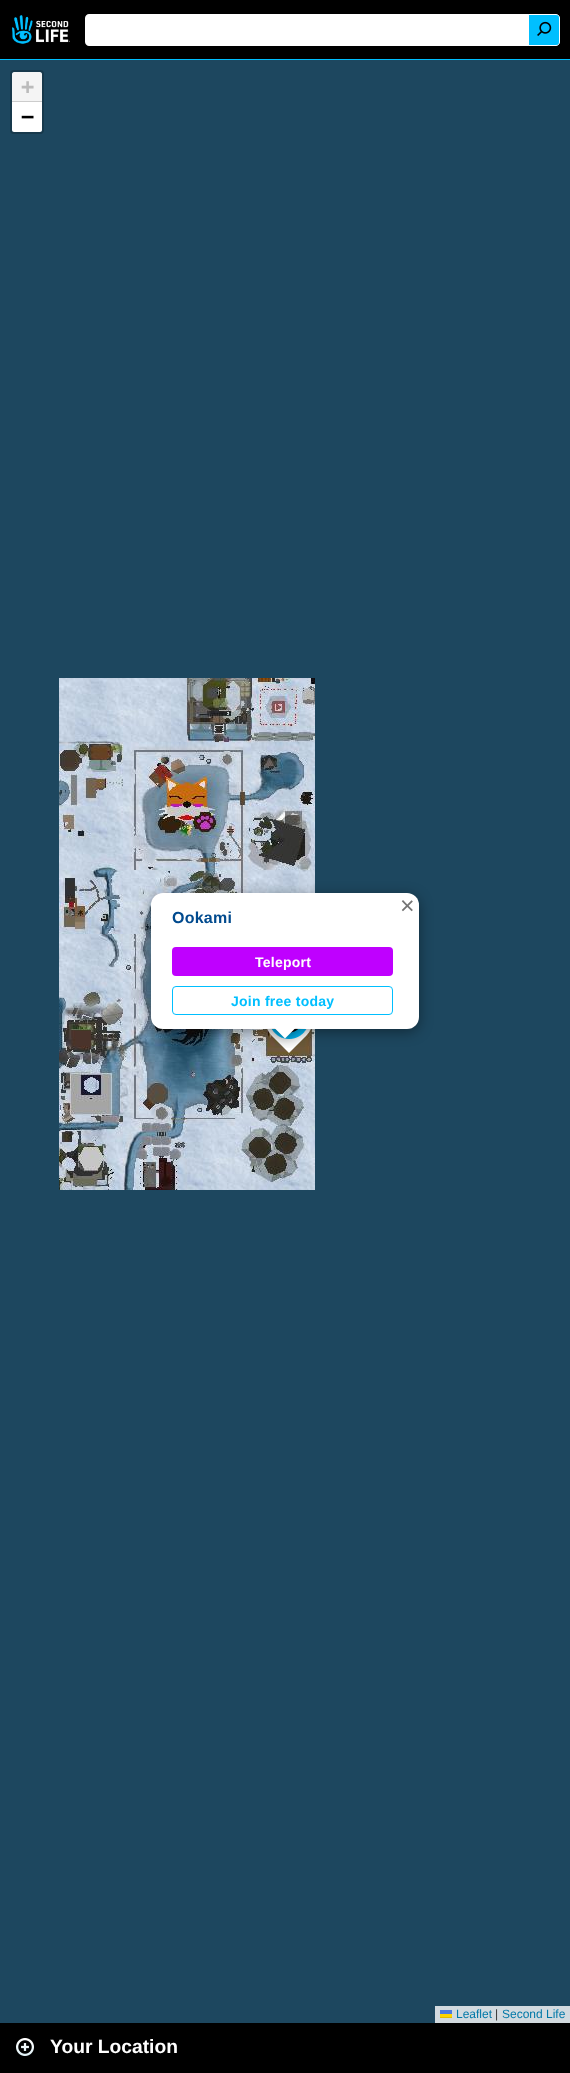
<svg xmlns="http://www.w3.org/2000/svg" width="570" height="2073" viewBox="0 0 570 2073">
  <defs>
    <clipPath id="clip1"><rect x="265" y="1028" width="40" height="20"/></clipPath>
    <clipPath id="clip2"><rect x="265" y="1028" width="40" height="20"/></clipPath>
  </defs>
  <rect width="100%" height="100%" fill="rgb(0,0,0)"/>
  <rect x="0" y="59" width="570" height="1" fill="rgb(0,191,255)"/>
  <image x="12" y="15" width="58" height="29" href="pic1.png"/>
  <path d="M89 14H532V46H89C87 46 85 44 85 42V18C85 16 87 14 89 14Z" fill="rgb(255,255,255)"/>
  <path d="M528.5 14.5H556C558 14.5 559.5 16 559.5 18V42C559.5 44 558 45.5 556 45.5H528.5Z" fill="rgb(0,191,255)" stroke="rgb(255,255,255)"/>
  <image x="537" y="21" width="15" height="15" href="pic2.png"/>
  <rect x="0" y="60" width="570" height="1963" fill="rgb(29,71,95)"/>
  <rect x="11" y="71" width="32" height="62" rx="3" fill="none" stroke="rgb(23,57,76)" stroke-width="2"/>
  <path d="M14 72H40C41 72 42 73 42 74V102H12V74C12 73 13 72 14 72Z" fill="rgb(244,244,244)"/>
  <rect x="12" y="101" width="30" height="1" fill="rgb(204,204,204)"/>
  <text x="21" y="94" font-family="DejaVu Sans Mono" font-size="22" font-weight="bold" fill="rgb(187,187,187)">+</text>
  <path d="M12 102H42V130C42 131 41 132 40 132H14C13 132 12 131 12 130Z" fill="rgb(255,255,255)"/>
  <text x="21" y="124" font-family="DejaVu Sans Mono" font-size="22" font-weight="bold" fill="rgb(0,0,0)">−</text>
  <rect x="435" y="2006" width="135" height="17" fill="rgb(210,218,223)"/>
  <text x="456" y="2018" font-family="Liberation Sans" font-size="12" fill="rgb(0,120,168)">Leaflet</text>
  <rect x="440" y="2010" width="12" height="4" fill="rgb(76,123,225)"/>
  <rect x="440" y="2014" width="12" height="3" fill="rgb(255,213,0)"/>
  <rect x="440" y="2017" width="12" height="1" fill="rgb(224,188,0)"/>
  <text x="495" y="2018" font-family="Liberation Sans" font-size="12" fill="rgb(51,51,51)">|</text>
  <text x="502" y="2018" font-family="Liberation Sans" font-size="12" fill="rgb(0,120,168)">Second Life</text>
  <image x="59" y="678" width="256" height="256" href="pic3.png"/>
  <image x="59" y="934" width="256" height="256" href="pic4.png"/>
  <image x="267" y="1029" width="44" height="24" href="pic5.png"/>
  <rect x="151" y="896" width="268" height="136" rx="12" fill="rgba(0,0,0,0.4)" filter="blur(7px)"/>
  <rect x="151" y="893" width="268" height="136" rx="12" fill="rgb(255,255,255)"/>
  <text x="400" y="914" font-family="Liberation Sans" font-size="25" fill="rgb(117,117,117)">×</text>
  <text x="172" y="923" font-family="Liberation Sans" font-size="16" font-weight="bold" letter-spacing="0.25" fill="rgb(1,74,142)">Ookami</text>
  <rect x="172" y="947" width="221" height="29" rx="4" fill="rgb(191,0,255)"/>
  <text x="255" y="967" font-family="Liberation Sans" font-size="14" font-weight="bold" letter-spacing="0.25" fill="rgb(255,255,255)">Teleport</text>
  <rect x="172.5" y="986.5" width="220" height="28" rx="3.5" fill="none" stroke="rgb(0,191,255)"/>
  <text x="231" y="1006" font-family="Liberation Sans" font-size="14" font-weight="bold" letter-spacing="0.25" fill="rgb(0,191,255)">Join free today</text>
  <g clip-path="url(#clip1)">
    <rect x="277" y="1021" width="17" height="17" fill="rgba(0,0,0,0.4)" filter="blur(7px)"/>
  </g>
  <g clip-path="url(#clip2)">
    <path d="M285 1014.5L297 1026.5L285 1038.5L273 1026.5Z" fill="rgb(255,255,255)"/>
  </g>
  <image x="16" y="2038" width="18" height="18" href="pic6.png"/>
  <text x="50" y="2053" font-family="Liberation Sans" font-size="19.25" font-weight="bold" fill="rgb(255,255,255)">Your Location</text>
</svg>
